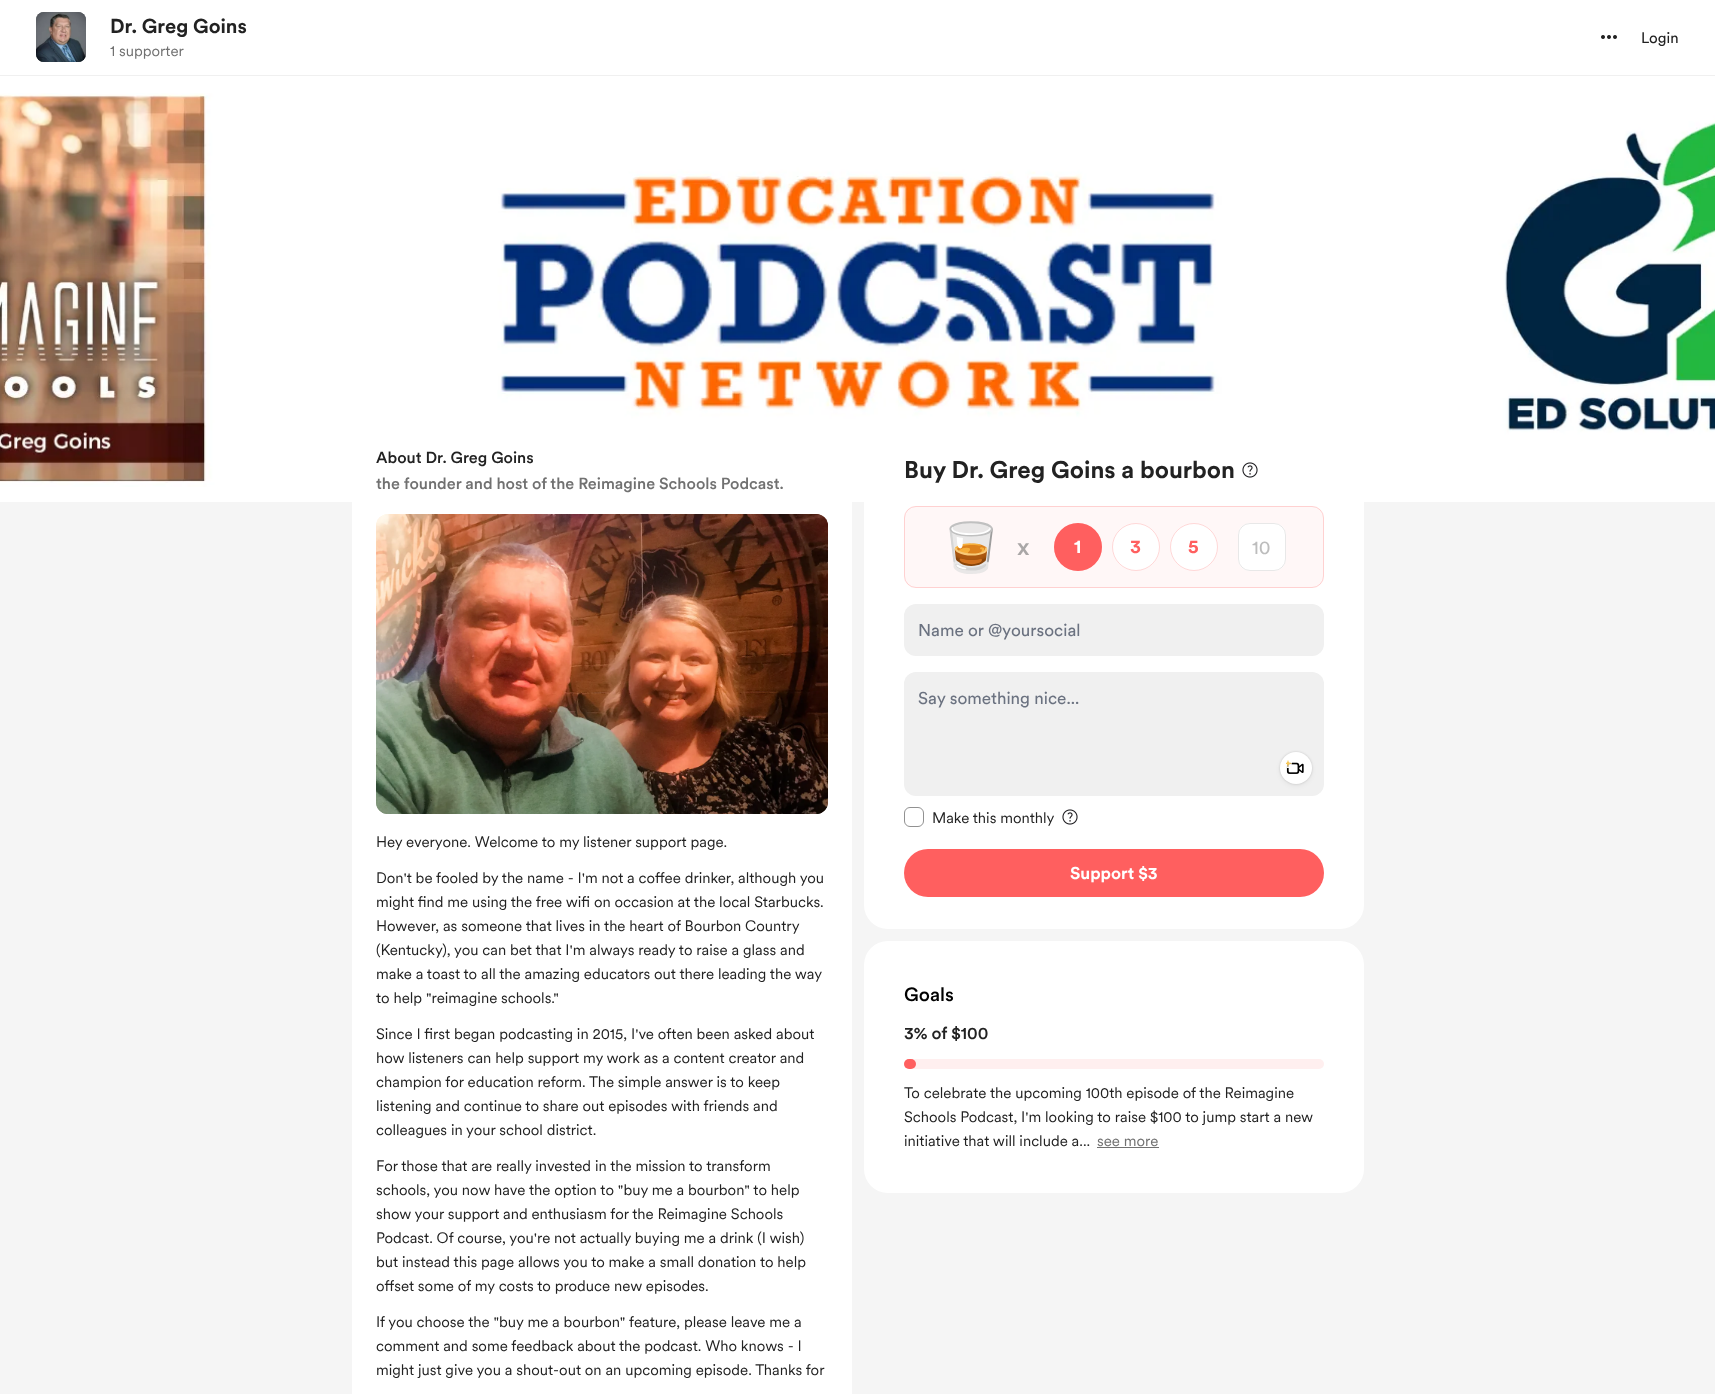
<svg xmlns="http://www.w3.org/2000/svg" width="1715" height="1394" viewBox="0 0 1715 1394">
  <defs>
    <clipPath id="clip1"><rect x="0" y="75" width="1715" height="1"/></clipPath>
  </defs>
  <rect width="100%" height="100%" fill="rgb(255,255,255)"/>
  <g clip-path="url(#clip1)">
    <rect x="0" y="1" width="1715" height="75" fill="rgba(0,0,0,0.06)" filter="blur(0.5px)"/>
  </g>
  <image x="36" y="12" width="50" height="50" href="pic1.png"/>
  <image x="36" y="12" width="50" height="50" href="pic2.png"/>
  <text x="110" y="33" font-family="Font" font-size="20" font-weight="bold" fill="rgb(34,34,34)">Dr. Greg Goins</text>
  <text x="110" y="56" font-family="Font" font-size="15" fill="rgb(113,113,113)">1 supporter</text>
  <image x="1601" y="35" width="16" height="4" href="pic3.png"/>
  <text x="1641" y="43" font-family="'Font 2'" font-size="15" fill="rgb(34,34,34)">Login</text>
  <rect x="0" y="502" width="1715" height="892" fill="rgb(245,245,245)"/>
  <image x="0" y="93" width="1715" height="394" href="pic4.png"/>
  <rect x="352" y="422" width="500" height="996" rx="24" fill="rgb(255,255,255)"/>
  <text x="376" y="463" font-family="Font" font-size="16" font-weight="500" fill="rgb(34,34,34)">About Dr. Greg Goins</text>
  <text x="376" y="489" font-family="Font" font-size="16" font-weight="500" fill="rgb(113,113,113)">the founder and host of the Reimagine Schools Podcast.</text>
  <image x="376" y="514" width="452" height="300" href="pic5.png"/>
  <image x="376" y="514" width="452" height="300" href="pic6.png"/>
  <g font-family="Font" font-size="15" fill="rgb(34,34,34)">
    <text x="376" y="847">Hey everyone. Welcome to my listener support page.</text>
    <text>
      <tspan x="376" y="883">Don't be fooled by the name - I'm not a coffee drinker, although you</tspan>
      <tspan x="376" y="907">might find me using the free wifi on occasion at the local Starbucks.</tspan>
      <tspan x="376" y="931">However, as someone that lives in the heart of Bourbon Country</tspan>
      <tspan x="376" y="955">(Kentucky), you can bet that I'm always ready to raise a glass and</tspan>
      <tspan x="376" y="979">make a toast to all the amazing educators out there leading the way</tspan>
      <tspan x="376" y="1003">to help "reimagine schools."</tspan>
    </text>
    <text>
      <tspan x="376" y="1039">Since I first began podcasting in 2015, I've often been asked about</tspan>
      <tspan x="376" y="1063">how listeners can help support my work as a content creator and</tspan>
      <tspan x="376" y="1087">champion for education reform. The simple answer is to keep</tspan>
      <tspan x="376" y="1111">listening and continue to share out episodes with friends and</tspan>
      <tspan x="376" y="1135">colleagues in your school district.</tspan>
    </text>
    <text>
      <tspan x="376" y="1171">For those that are really invested in the mission to transform</tspan>
      <tspan x="376" y="1195">schools, you now have the option to "buy me a bourbon" to help</tspan>
      <tspan x="376" y="1219">show your support and enthusiasm for the Reimagine Schools</tspan>
      <tspan x="376" y="1243">Podcast. Of course, you're not actually buying me a drink (I wish)</tspan>
      <tspan x="376" y="1267">but instead this page allows you to make a small donation to help</tspan>
      <tspan x="376" y="1291">offset some of my costs to produce new episodes.</tspan>
    </text>
    <text>
      <tspan x="376" y="1327">If you choose the "buy me a bourbon" feature, please leave me a</tspan>
      <tspan x="376" y="1351">comment and some feedback about the podcast. Who knows - I</tspan>
      <tspan x="376" y="1375">might just give you a shout-out on an upcoming episode. Thanks for</tspan>
    </text>
  </g>
  <rect x="864" y="422" width="500" height="507" rx="24" fill="rgb(255,255,255)"/>
  <text x="904" y="478" font-family="Font" font-size="24" font-weight="bold" fill="rgb(34,34,34)">Buy Dr. Greg Goins a bourbon</text>
  <image x="1242" y="462" width="16" height="16" href="pic7.png"/>
  <rect x="904" y="506" width="420" height="82" rx="12" fill="rgb(255,247,247)"/>
  <rect x="904.5" y="506.5" width="419" height="81" rx="11.5" fill="none" stroke="rgba(255,95,95,0.25)"/>
  <text x="941" y="564" font-family="Noto Color Emoji" font-size="48" fill="rgb(0,0,0)">🥃</text>
  <text x="1017" y="555" font-family="Font" font-size="24" font-weight="500" fill="rgb(170,167,167)">x</text>
  <circle cx="1078" cy="547" r="24" fill="rgb(255,95,95)"/>
  <circle cx="1078" cy="547" r="23.5" fill="none" stroke="rgba(255,95,95,0.25)"/>
  <text x="1074" y="553" font-family="Font" font-size="19" font-weight="bold" fill="rgb(255,255,255)">1</text>
  <circle cx="1136" cy="547" r="24" fill="rgb(255,255,255)"/>
  <circle cx="1136" cy="547" r="23.5" fill="none" stroke="rgba(255,95,95,0.25)"/>
  <text x="1130" y="553" font-family="Font" font-size="19" font-weight="bold" fill="rgb(255,95,95)">3</text>
  <circle cx="1194" cy="547" r="24" fill="rgb(255,255,255)"/>
  <circle cx="1194" cy="547" r="23.5" fill="none" stroke="rgba(255,95,95,0.25)"/>
  <text x="1188" y="553" font-family="Font" font-size="19" font-weight="bold" fill="rgb(255,95,95)">5</text>
  <rect x="1238" y="523" width="48" height="48" rx="12" fill="rgb(255,255,255)"/>
  <rect x="1238.5" y="523.5" width="47" height="47" rx="11.5" fill="none" stroke="rgba(34,34,34,0.1)"/>
  <text x="1252" y="554" font-family="'Font 2'" font-size="19" fill="rgb(189,189,189)">10</text>
  <rect x="904" y="604" width="420" height="52" rx="12" fill="rgb(240,240,240)"/>
  <text x="918" y="636" font-family="'Font 2'" font-size="17" fill="rgb(107,114,128)">Name or @yoursocial</text>
  <rect x="904" y="672" width="420" height="124" rx="12" fill="rgb(240,240,240)"/>
  <text x="918" y="704" font-family="'Font 2'" font-size="17" fill="rgb(107,114,128)">Say something nice...</text>
  <rect x="1280" y="754" width="32" height="32" rx="16" fill="rgba(0,0,0,0.05)" filter="blur(2.5px)"/>
  <rect x="1280" y="752" width="32" height="32" rx="16" fill="rgba(0,0,0,0.15)" filter="blur(1px)"/>
  <circle cx="1296" cy="768" r="16" fill="rgb(255,255,255)"/>
  <image x="1286" y="762" width="18" height="12" href="pic9.png"/>
  <image x="1286" y="760" width="6" height="8" href="pic8.png"/>
  <rect x="904.5" y="807.5" width="19" height="19" rx="5.5" fill="none" stroke="rgb(145,145,145)"/>
  <text x="932" y="823" font-family="Font" font-size="15" fill="rgb(34,34,34)">Make this monthly</text>
  <image x="1062" y="809" width="16" height="16" href="pic7.png"/>
  <rect x="904" y="849" width="420" height="48" rx="24" fill="rgb(255,95,95)"/>
  <text x="1070" y="879" font-family="Font" font-size="17" font-weight="bold" fill="rgb(255,255,255)">Support $3</text>
  <rect x="864" y="941" width="500" height="252" rx="24" fill="rgb(255,255,255)"/>
  <text x="904" y="1001" font-family="Font" font-size="19" font-weight="500" fill="rgb(0,0,0)">Goals</text>
  <text x="904" y="1039" font-family="Font" font-size="17" font-weight="500" fill="rgb(34,34,34)">3% of $100</text>
  <rect x="904" y="1059" width="420" height="10" rx="5" fill="rgb(255,239,239)"/>
  <rect x="904" y="1059" width="12" height="10" rx="5" fill="rgb(255,95,95)"/>
  <g font-family="Font" font-size="15" fill="rgb(34,34,34)">
    <text>
      <tspan x="904" y="1098">To celebrate the upcoming 100th episode of the Reimagine</tspan>
      <tspan x="904" y="1122">Schools Podcast, I'm looking to raise $100 to jump start a new</tspan>
      <tspan x="904" y="1146">initiative that will include a...</tspan>
    </text>
  </g>
  <text x="1097" y="1146" font-family="Font" font-size="15" fill="rgb(113,113,113)">see more</text>
  <rect x="1097" y="1147" width="62" height="1" fill="rgb(113,113,113)"/>
</svg>
